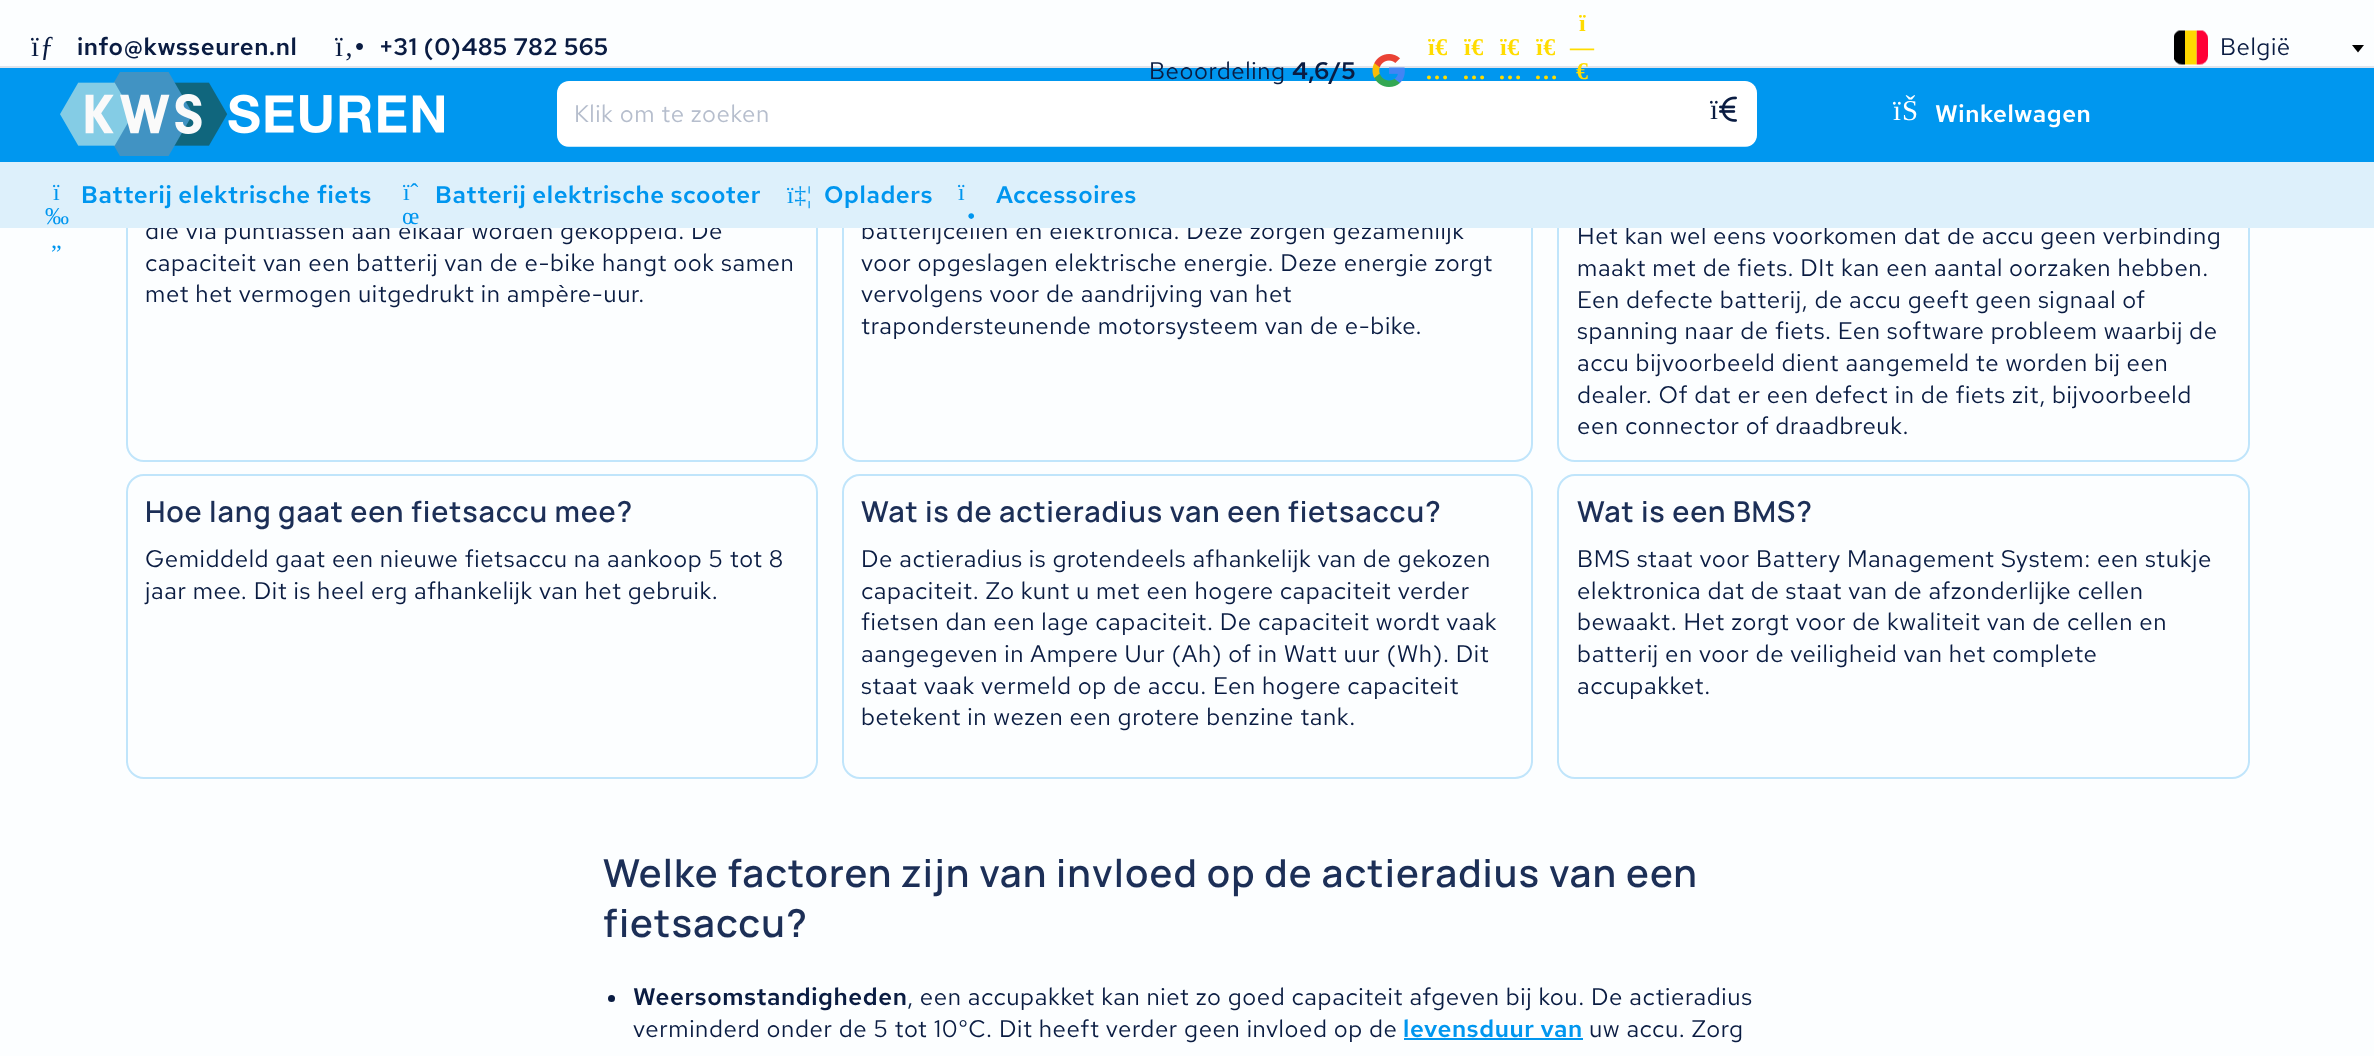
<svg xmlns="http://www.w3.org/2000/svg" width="2374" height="1056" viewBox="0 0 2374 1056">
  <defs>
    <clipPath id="clip1"><rect x="557" y="81" width="1200" height="66" rx="12"/></clipPath>
  </defs>
  <rect width="100%" height="100%" fill="rgb(252,254,255)"/>
  <rect x="0" y="66" width="2374" height="2" fill="rgb(225,228,235)"/>
  <text x="31" y="56" font-family="Liberation Serif" font-size="28.8" letter-spacing="1" fill="rgb(10,28,66)">ïƒ</text>
  <text x="77" y="55" font-family="Red Hat Text" font-size="24" font-weight="600" letter-spacing="0.6" fill="rgb(10,28,66)">info@kwsseuren.nl</text>
  <text x="335" y="56" font-family="Liberation Serif" font-size="28.8" letter-spacing="1" fill="rgb(10,28,66)">ï‚•</text>
  <text x="379" y="55" font-family="Red Hat Text" font-size="24" font-weight="600" letter-spacing="0.6" fill="rgb(10,28,66)">+31 (0)485 782 565</text>
  <rect x="127" y="115" width="690" height="346" rx="17" fill="none" stroke="rgb(192,229,251)" stroke-width="2"/>
  <rect x="843" y="115" width="689" height="346" rx="17" fill="none" stroke="rgb(192,229,251)" stroke-width="2"/>
  <rect x="1558" y="115" width="691" height="346" rx="17" fill="none" stroke="rgb(192,229,251)" stroke-width="2"/>
  <rect x="0" y="68" width="2374" height="94" fill="rgb(0,151,239)"/>
  <path d="M569 81H1691V147H569C562.5 147 557 141.5 557 135V93C557 86.5 562.5 81 569 81Z" fill="rgb(255,255,255)"/>
  <text x="1149" y="79" font-family="Red Hat Text" font-size="24" letter-spacing="0.6" fill="rgb(10,28,66)">Beoordeling</text>
  <text x="1292" y="79" font-family="Red Hat Text" font-size="24" font-weight="600" letter-spacing="0.6" fill="rgb(10,28,66)">4,6/5</text>
  <image x="1372" y="54" width="33" height="33" href="pic1.png"/>
  <g font-family="Liberation Serif" font-size="24" font-weight="bold" letter-spacing="0.6" fill="rgb(255,220,0)">
    <text x="1428" y="55">ï€</text>
    <text x="1425" y="79">…</text>
    <text x="1464" y="55">ï€</text>
    <text x="1462" y="79">…</text>
    <text x="1500" y="55">ï€</text>
    <text x="1498" y="79">…</text>
    <text x="1536" y="55">ï€</text>
    <text x="1534" y="79">…</text>
    <text x="1579" y="31">ï</text>
    <text x="1570" y="55">—</text>
    <text x="1576" y="79">€</text>
  </g>
  <image x="2174" y="30" width="34" height="35" href="pic2.png"/>
  <text x="2220" y="55" font-family="Red Hat Text" font-size="24" letter-spacing="0.6" fill="rgb(10,28,66)">België</text>
  <path d="M2352 45H2364L2358 52.5Z" fill="rgb(0,0,0)"/>
  <image x="60" y="72" width="384" height="84" href="pic3.png"/>
  <g clip-path="url(#clip1)">
    <rect x="557" y="146" width="1134" height="1" fill="rgba(0,151,239,0.24)"/>
  </g>
  <text x="574" y="122" font-family="Red Hat Text" font-size="24" letter-spacing="0.6" fill="rgb(182,190,205)">Klik om te zoeken</text>
  <path d="M1691 81H1745C1751.5 81 1757 86.5 1757 93V135C1757 141.5 1751.5 147 1745 147H1691Z" fill="rgb(255,255,255)"/>
  <g clip-path="url(#clip1)">
    <rect x="1691" y="146" width="66" height="1" fill="rgba(0,151,239,0.24)"/>
  </g>
  <text x="1710" y="119" font-family="Liberation Serif" font-size="28.8" letter-spacing="1" fill="rgb(10,28,66)">ï</text>
  <image x="1719" y="96" width="18" height="26" href="pic4.png"/>
  <text x="1893" y="120" font-family="Liberation Serif" font-size="28.8" letter-spacing="1" fill="rgb(255,255,255)">ïŠ</text>
  <text x="1935" y="122" font-family="Red Hat Text" font-size="24" font-weight="600" letter-spacing="0.6" fill="rgb(255,255,255)">Winkelwagen</text>
  <g font-family="Red Hat Text" font-size="24" letter-spacing="0.6" fill="rgb(10,28,66)">
    <text x="145" y="239">die via puntlassen aan elkaar worden gekoppeld. De</text>
    <text x="861" y="239">batterijcellen en elektronica. Deze zorgen gezamenlijk</text>
    <text x="1577" y="244">Het kan wel eens voorkomen dat de accu geen verbinding</text>
  </g>
  <rect x="0" y="162" width="2374" height="66" fill="rgb(221,240,251)"/>
  <g font-family="Liberation Serif" font-size="24" letter-spacing="0.6" fill="rgb(0,150,239)">
    <text x="53" y="200">ï</text>
    <text x="45" y="224">‰</text>
    <text x="51" y="248">„</text>
  </g>
  <text x="81" y="203" font-family="Red Hat Text" font-size="24" font-weight="600" letter-spacing="0.6" fill="rgb(0,150,239)">Batterij elektrische fiets</text>
  <g font-family="Liberation Serif" font-size="24" letter-spacing="0.6" fill="rgb(0,150,239)">
    <text x="403" y="200">ïˆ</text>
    <text x="402" y="224">œ</text>
  </g>
  <text x="435" y="203" font-family="Red Hat Text" font-size="24" font-weight="600" letter-spacing="0.6" fill="rgb(0,150,239)">Batterij elektrische scooter</text>
  <text x="787" y="203" font-family="Liberation Serif" font-size="24" letter-spacing="0.6" fill="rgb(0,150,239)">ï‡¦</text>
  <text x="824" y="203" font-family="Red Hat Text" font-size="24" font-weight="600" letter-spacing="0.6" fill="rgb(0,150,239)">Opladers</text>
  <g font-family="Liberation Serif" font-size="24" letter-spacing="0.6" fill="rgb(0,150,239)">
    <text x="958" y="200">ï</text>
    <text x="967" y="224">•</text>
  </g>
  <text x="996" y="203" font-family="Red Hat Text" font-size="24" font-weight="600" letter-spacing="0.6" fill="rgb(0,150,239)">Accessoires</text>
  <g font-family="Red Hat Text" font-size="24" letter-spacing="0.6" fill="rgb(10,28,66)">
    <text>
      <tspan x="145" y="271">capaciteit van een batterij van de e-bike hangt ook samen</tspan>
      <tspan x="145" y="302">met het vermogen uitgedrukt in ampère-uur.</tspan>
    </text>
    <text>
      <tspan x="861" y="271">voor opgeslagen elektrische energie. Deze energie zorgt</tspan>
      <tspan x="861" y="302">vervolgens voor de aandrijving van het</tspan>
      <tspan x="861" y="334">trapondersteunende motorsysteem van de e-bike.</tspan>
    </text>
    <text>
      <tspan x="1577" y="276">maakt met de fiets. DIt kan een aantal oorzaken hebben.</tspan>
      <tspan x="1577" y="308">Een defecte batterij, de accu geeft geen signaal of</tspan>
      <tspan x="1577" y="339">spanning naar de fiets. Een software probleem waarbij de</tspan>
      <tspan x="1577" y="371">accu bijvoorbeeld dient aangemeld te worden bij een</tspan>
      <tspan x="1577" y="403">dealer. Of dat er een defect in de fiets zit, bijvoorbeeld</tspan>
      <tspan x="1577" y="434">een connector of draadbreuk.</tspan>
    </text>
  </g>
  <rect x="127" y="475" width="690" height="303" rx="17" fill="none" stroke="rgb(192,229,251)" stroke-width="2"/>
  <text x="145" y="522" font-family="Manrope" font-size="28.8" font-weight="600" letter-spacing="0.8" fill="rgb(28,47,87)">Hoe lang gaat een fietsaccu mee?</text>
  <g font-family="Red Hat Text" font-size="24" letter-spacing="0.6" fill="rgb(10,28,66)">
    <text>
      <tspan x="145" y="567">Gemiddeld gaat een nieuwe fietsaccu na aankoop 5 tot 8</tspan>
      <tspan x="145" y="599">jaar mee. Dit is heel erg afhankelijk van het gebruik.</tspan>
    </text>
  </g>
  <rect x="843" y="475" width="689" height="303" rx="17" fill="none" stroke="rgb(192,229,251)" stroke-width="2"/>
  <text x="861" y="522" font-family="Manrope" font-size="28.8" font-weight="600" letter-spacing="0.8" fill="rgb(28,47,87)">Wat is de actieradius van een fietsaccu?</text>
  <g font-family="Red Hat Text" font-size="24" letter-spacing="0.6" fill="rgb(10,28,66)">
    <text>
      <tspan x="861" y="567">De actieradius is grotendeels afhankelijk van de gekozen</tspan>
      <tspan x="861" y="599">capaciteit. Zo kunt u met een hogere capaciteit verder</tspan>
      <tspan x="861" y="630">fietsen dan een lage capaciteit. De capaciteit wordt vaak</tspan>
      <tspan x="861" y="662">aangegeven in Ampere Uur (Ah) of in Watt uur (Wh). Dit</tspan>
      <tspan x="861" y="694">staat vaak vermeld op de accu. Een hogere capaciteit</tspan>
      <tspan x="861" y="725">betekent in wezen een grotere benzine tank.</tspan>
    </text>
  </g>
  <rect x="1558" y="475" width="691" height="303" rx="17" fill="none" stroke="rgb(192,229,251)" stroke-width="2"/>
  <text x="1577" y="522" font-family="Manrope" font-size="28.8" font-weight="600" letter-spacing="0.8" fill="rgb(28,47,87)">Wat is een BMS?</text>
  <g font-family="Red Hat Text" font-size="24" letter-spacing="0.6" fill="rgb(10,28,66)">
    <text>
      <tspan x="1577" y="567">BMS staat voor Battery Management System: een stukje</tspan>
      <tspan x="1577" y="599">elektronica dat de staat van de afzonderlijke cellen</tspan>
      <tspan x="1577" y="630">bewaakt. Het zorgt voor de kwaliteit van de cellen en</tspan>
      <tspan x="1577" y="662">batterij en voor de veiligheid van het complete</tspan>
      <tspan x="1577" y="694">accupakket.</tspan>
    </text>
  </g>
  <g font-family="Manrope" font-size="38.4" font-weight="600" letter-spacing="1.08" fill="rgb(28,47,87)">
    <text>
      <tspan x="603" y="887">Welke factoren zijn van invloed op de actieradius van een</tspan>
      <tspan x="603" y="937">fietsaccu?</tspan>
    </text>
  </g>
  <circle cx="611.5" cy="998.5" r="3.5" fill="rgb(10,28,66)"/>
  <text x="633" y="1005" font-family="Red Hat Text" font-size="24" font-weight="600" letter-spacing="0.6" fill="rgb(10,28,66)">Weersomstandigheden</text>
  <g font-family="Red Hat Text" font-size="24" letter-spacing="0.6" fill="rgb(10,28,66)">
    <text x="907" y="1005">, een accupakket kan niet zo goed capaciteit afgeven bij kou. De actieradius</text>
    <text x="633" y="1037">verminderd onder de 5 tot 10°C. Dit heeft verder geen invloed op de</text>
  </g>
  <text x="1403" y="1037" font-family="Red Hat Text" font-size="24" font-weight="600" letter-spacing="0.6" fill="rgb(0,150,239)">levensduur van</text>
  <rect x="1404" y="1038" width="179" height="2" fill="rgb(0,150,239)"/>
  <text x="1589" y="1037" font-family="Red Hat Text" font-size="24" letter-spacing="0.6" fill="rgb(10,28,66)">uw accu. Zorg</text>
</svg>
